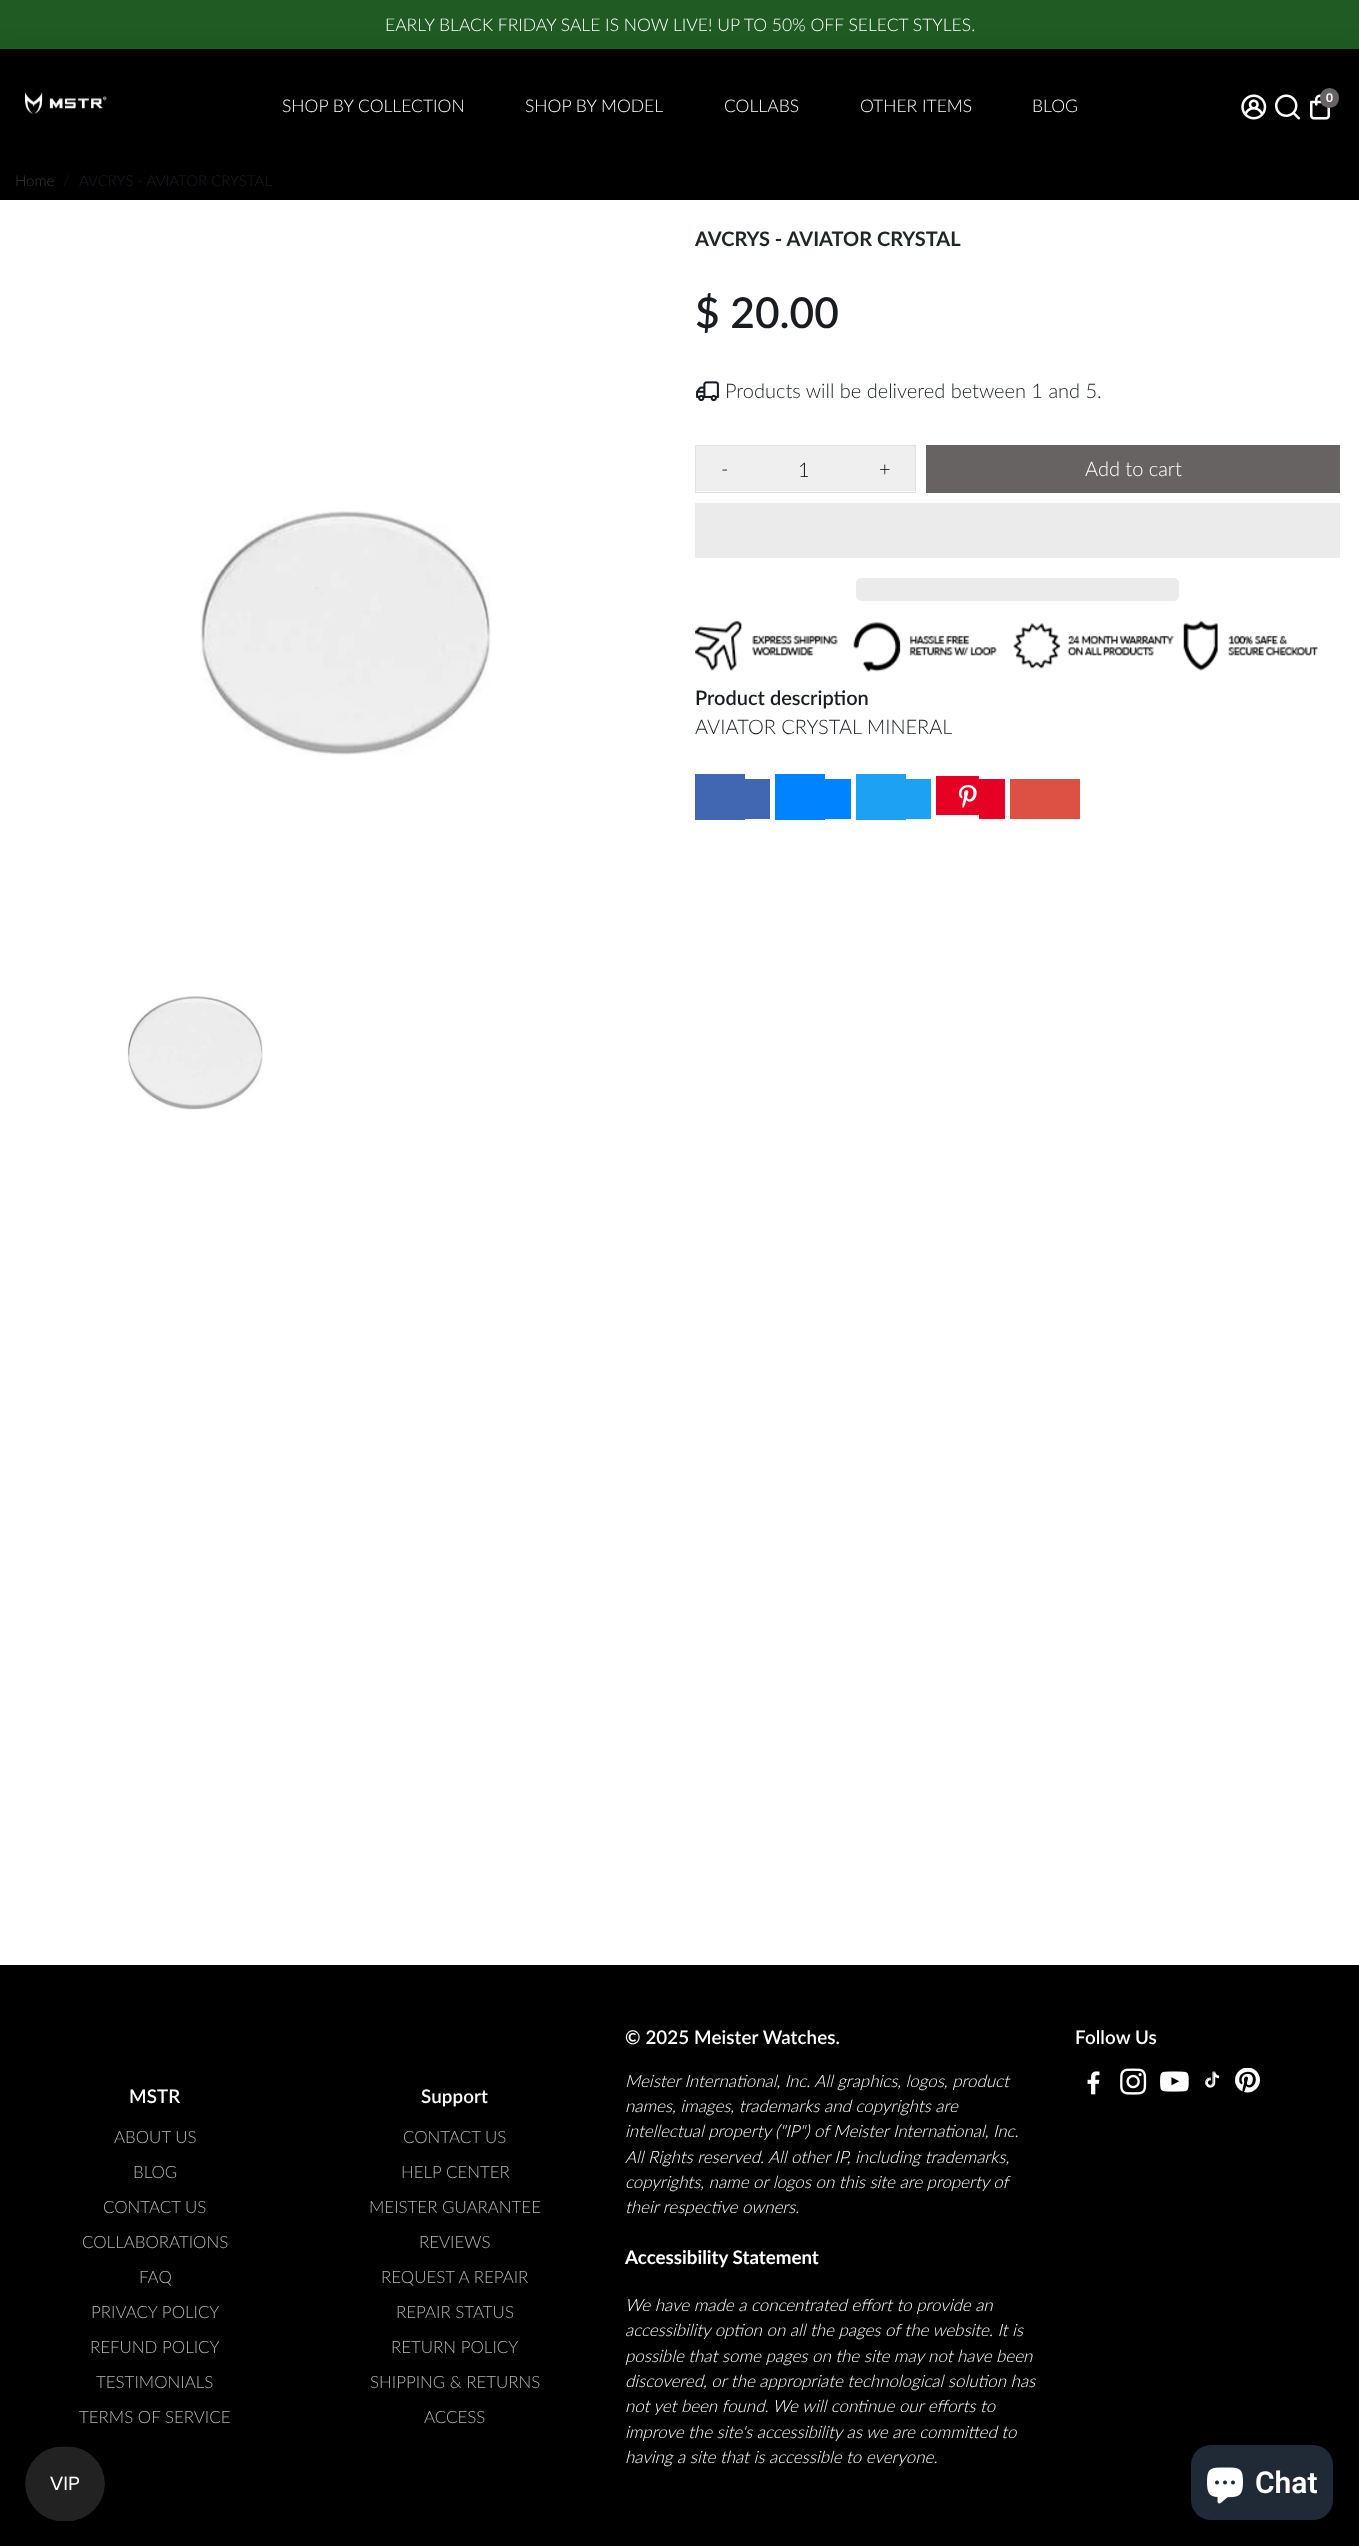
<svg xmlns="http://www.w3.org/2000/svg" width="1359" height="2546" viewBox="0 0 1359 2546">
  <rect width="100%" height="100%" fill="rgb(255,255,255)"/>
  <rect x="0" y="0" width="1359" height="49" fill="rgb(31,91,35)"/>
  <text x="385" y="31" font-family="Lato" font-size="17.5" font-weight="300" fill="rgb(255,255,255)">EARLY BLACK FRIDAY SALE IS NOW LIVE! UP TO 50% OFF SELECT STYLES.</text>
  <rect x="0" y="161" width="1359" height="39" fill="rgb(0,0,0)"/>
  <rect x="0" y="49" width="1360" height="112" fill="rgba(0,0,0,0.06)" filter="blur(12.5px)"/>
  <rect x="0" y="49" width="1359" height="112" fill="rgb(0,0,0)"/>
  <image x="25" y="92" width="82" height="23" href="pic1.png"/>
  <image x="1241" y="94" width="26" height="26" href="pic2.png"/>
  <image x="1275" y="94" width="25" height="26" href="pic3.png"/>
  <image x="1310" y="94" width="20" height="26" href="pic4.png"/>
  <rect x="1320" y="88" width="19" height="20" rx="9.5" fill="rgb(104,99,99)"/>
  <text x="1326" y="102" font-family="Lato" font-size="12" font-weight="bold" fill="rgb(255,255,255)">0</text>
  <g font-family="Lato" font-size="17.5" font-weight="300" fill="rgb(255,255,255)">
    <text x="282" y="112">SHOP BY COLLECTION</text>
    <text x="525" y="112">SHOP BY MODEL</text>
    <text x="724" y="112">COLLABS</text>
    <text x="860" y="112">OTHER ITEMS</text>
    <text x="1032" y="112">BLOG</text>
  </g>
  <text x="15" y="186" font-family="Lato" font-size="15" font-weight="300" fill="rgb(56,56,56)">Home</text>
  <g font-family="Lato" font-size="15" font-weight="300" fill="rgb(25,29,33)">
    <text x="63" y="186">/</text>
    <text x="79" y="186">AVCRYS - AVIATOR CRYSTAL</text>
  </g>
  <image x="200" y="511" width="291" height="244" href="pic5.png"/>
  <image x="127" y="996" width="136" height="114" href="pic6.png"/>
  <text x="695" y="246" font-family="Lato" font-size="20" font-weight="bold" fill="rgb(32,38,38)">AVCRYS - AVIATOR CRYSTAL</text>
  <text x="695" y="328" font-family="Lato" font-size="42.5" font-weight="600" fill="rgb(25,29,33)">$ 20.00</text>
  <image x="696" y="381" width="23" height="21" href="pic7.png"/>
  <text x="725" y="398" font-family="Lato" font-size="20" font-weight="300" fill="rgb(25,29,33)">Products will be delivered between 1 and 5.</text>
  <rect x="695.5" y="445.5" width="220" height="47" fill="none" stroke="rgb(226,226,226)"/>
  <rect x="696" y="446" width="219" height="45" fill="rgb(239,239,239)"/>
  <g font-family="Lato" font-size="20" font-weight="300" fill="rgb(0,0,0)">
    <text x="721" y="476">-</text>
    <text x="798" y="477">1</text>
    <text x="879" y="476">+</text>
  </g>
  <rect x="926" y="445" width="414" height="48" fill="rgb(104,99,99)"/>
  <text x="1085" y="476" font-family="Lato" font-size="20" font-weight="300" fill="rgb(255,255,255)">Add to cart</text>
  <rect x="695" y="503" width="645" height="55" fill="rgb(235,235,235)"/>
  <rect x="856" y="578" width="323" height="23" rx="5" fill="rgb(235,235,235)"/>
  <image x="695" y="620" width="623" height="52" href="pic8.png"/>
  <text x="695" y="705" font-family="Lato" font-size="20" font-weight="600" fill="rgb(25,29,33)">Product description</text>
  <text x="695" y="734" font-family="Lato" font-size="20" font-weight="300" fill="rgb(25,29,33)">AVIATOR CRYSTAL MINERAL</text>
  <rect x="695" y="774" width="50" height="46" fill="rgb(66,103,178)"/>
  <rect x="745" y="779" width="25" height="40" fill="rgb(66,103,178)"/>
  <rect x="775" y="774" width="50" height="46" fill="rgb(0,131,255)"/>
  <rect x="825" y="779" width="26" height="40" fill="rgb(0,131,255)"/>
  <rect x="856" y="774" width="50" height="46" fill="rgb(29,161,242)"/>
  <rect x="906" y="779" width="25" height="40" fill="rgb(29,161,242)"/>
  <rect x="936" y="776" width="43" height="39" fill="rgb(230,0,35)"/>
  <rect x="979" y="779" width="26" height="40" fill="rgb(230,0,35)"/>
  <rect x="1010" y="779" width="70" height="40" fill="rgb(221,80,68)"/>
  <image x="958" y="785" width="19" height="23" href="pic9.png"/>
  <rect x="0" y="1965" width="1359" height="581" fill="rgb(0,0,0)"/>
  <text x="625" y="2044" font-family="Lato" font-size="18.75" font-weight="600" letter-spacing="0.1" fill="rgb(255,255,255)">© 2025 Meister Watches.</text>
  <g font-family="Lato" font-size="16.9" font-weight="300" font-style="italic" fill="rgb(255,255,255)">
    <text>
      <tspan x="625" y="2087">Meister International, Inc. All graphics, logos, product</tspan>
      <tspan x="625" y="2112">names, images, trademarks and copyrights are</tspan>
      <tspan x="625" y="2137">intellectual property ("IP") of Meister International, Inc.</tspan>
      <tspan x="625" y="2163">All Rights reserved. All other IP, including trademarks,</tspan>
      <tspan x="625" y="2188">copyrights, name or logos on this site are property of</tspan>
      <tspan x="625" y="2213">their respective owners.</tspan>
    </text>
  </g>
  <text x="625" y="2264" font-family="Lato" font-size="18.75" font-weight="bold" fill="rgb(255,255,255)">Accessibility Statement</text>
  <g font-family="Lato" font-size="16.9" font-weight="300" font-style="italic" fill="rgb(255,255,255)">
    <text>
      <tspan x="625" y="2311">We have made a concentrated effort to provide an</tspan>
      <tspan x="625" y="2336">accessibility option on all the pages of the website. It is</tspan>
      <tspan x="625" y="2362">possible that some pages on the site may not have been</tspan>
      <tspan x="625" y="2387">discovered, or the appropriate technological solution has</tspan>
      <tspan x="625" y="2412">not yet been found. We will continue our efforts to</tspan>
      <tspan x="625" y="2438">improve the site's accessibility as we are committed to</tspan>
      <tspan x="625" y="2463">having a site that is accessible to everyone.</tspan>
    </text>
  </g>
  <text x="1075" y="2044" font-family="Lato" font-size="18.75" font-weight="600" letter-spacing="0.1" fill="rgb(255,255,255)">Follow Us</text>
  <image x="1087" y="2071" width="13" height="24" href="pic10.png"/>
  <image x="1120" y="2068" width="27" height="27" href="pic11.png"/>
  <image x="1160" y="2071" width="29" height="21" href="pic12.png"/>
  <image x="1205" y="2071" width="15" height="17" href="pic13.png"/>
  <image x="1235" y="2068" width="25" height="25" href="pic14.png"/>
  <text x="129" y="2103" font-family="Lato" font-size="18.75" font-weight="600" letter-spacing="0.1" fill="rgb(255,255,255)">MSTR</text>
  <g font-family="Lato" font-size="16.9" font-weight="300" fill="rgb(179,179,179)">
    <text x="114" y="2143">ABOUT US</text>
    <text x="133" y="2178">BLOG</text>
    <text x="103" y="2213">CONTACT US</text>
    <text x="82" y="2248">COLLABORATIONS</text>
    <text x="139" y="2283">FAQ</text>
    <text x="91" y="2318">PRIVACY POLICY</text>
    <text x="90" y="2353">REFUND POLICY</text>
    <text x="96" y="2388">TESTIMONIALS</text>
    <text x="79" y="2423">TERMS OF SERVICE</text>
  </g>
  <text x="421" y="2103" font-family="Lato" font-size="18.75" font-weight="600" letter-spacing="0.1" fill="rgb(255,255,255)">Support</text>
  <g font-family="Lato" font-size="16.9" font-weight="300" fill="rgb(179,179,179)">
    <text x="403" y="2143">CONTACT US</text>
    <text x="401" y="2178">HELP CENTER</text>
    <text x="369" y="2213">MEISTER GUARANTEE</text>
    <text x="419" y="2248">REVIEWS</text>
    <text x="381" y="2283">REQUEST A REPAIR</text>
    <text x="396" y="2318">REPAIR STATUS</text>
    <text x="391" y="2353">RETURN POLICY</text>
    <text x="370" y="2388">SHIPPING &amp; RETURNS</text>
    <text x="424" y="2423">ACCESS</text>
  </g>
  <image x="25" y="2446" width="80" height="75" href="pic15.png"/>
  <rect x="1191" y="2445" width="142" height="75" rx="20" fill="rgb(32,42,54)"/>
  <image x="1207" y="2467" width="36" height="37" href="pic16.png"/>
  <text x="1255" y="2493" font-family="Roboto" font-size="30" font-weight="600" fill="rgb(255,255,255)">Chat</text>
</svg>
